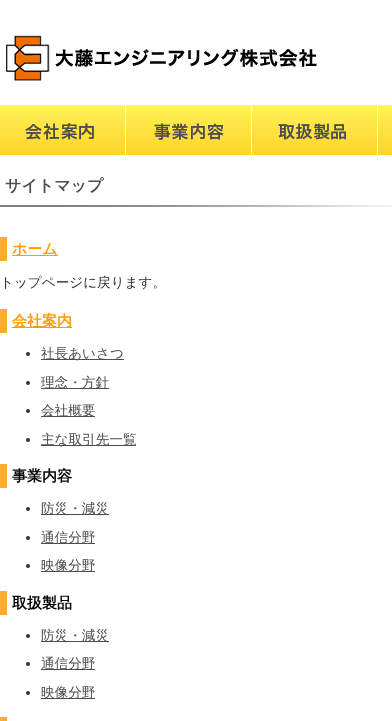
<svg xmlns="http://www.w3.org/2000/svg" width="392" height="721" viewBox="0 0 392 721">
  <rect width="100%" height="100%" fill="rgb(255,255,255)"/>
  <image x="6" y="35" width="311" height="46" href="pic1.png"/>
  <image x="0" y="105" width="125" height="50" href="pic2.png"/>
  <image x="126" y="105" width="125" height="50" href="pic3.png"/>
  <image x="252" y="105" width="125" height="50" href="pic4.png"/>
  <image x="378" y="105" width="14" height="50" href="pic5.png"/>
  <image x="0" y="205" width="392" height="2" href="pic6.png"/>
  <text x="5" y="191" font-family="WenQuanYi Zen Hei" font-size="16" font-weight="bold" fill="rgb(77,77,77)">サイトマップ</text>
  <rect x="0" y="237" width="7" height="24" fill="rgb(255,172,43)"/>
  <rect x="12" y="255" width="46" height="1" fill="rgb(255,156,1)"/>
  <text x="12" y="254" font-family="WenQuanYi Zen Hei" font-size="15" font-weight="bold" fill="rgb(255,156,1)">ホーム</text>
  <text x="0" y="287" font-family="WenQuanYi Zen Hei" font-size="13.6" font-weight="500" fill="rgb(51,51,51)">トップページに戻ります。</text>
  <rect x="0" y="309" width="7" height="24" fill="rgb(255,172,43)"/>
  <rect x="12" y="327" width="60" height="1" fill="rgb(255,156,1)"/>
  <text x="12" y="326" font-family="WenQuanYi Zen Hei" font-size="15" font-weight="bold" fill="rgb(255,156,1)">会社案内</text>
  <circle cx="28" cy="354" r="2" fill="rgb(51,51,51)"/>
  <rect x="41" y="359" width="83" height="1" fill="rgb(77,77,77)"/>
  <text x="41" y="358" font-family="WenQuanYi Zen Hei" font-size="13.6" font-weight="500" fill="rgb(77,77,77)">社長あいさつ</text>
  <circle cx="28" cy="383" r="2" fill="rgb(51,51,51)"/>
  <rect x="41" y="388" width="68" height="1" fill="rgb(77,77,77)"/>
  <text x="41" y="387" font-family="WenQuanYi Zen Hei" font-size="13.6" font-weight="500" fill="rgb(77,77,77)">理念・方針</text>
  <circle cx="28" cy="411" r="2" fill="rgb(51,51,51)"/>
  <rect x="41" y="416" width="54" height="1" fill="rgb(77,77,77)"/>
  <text x="41" y="415" font-family="WenQuanYi Zen Hei" font-size="13.6" font-weight="500" fill="rgb(77,77,77)">会社概要</text>
  <circle cx="28" cy="440" r="2" fill="rgb(51,51,51)"/>
  <rect x="41" y="445" width="95" height="1" fill="rgb(77,77,77)"/>
  <text x="41" y="444" font-family="WenQuanYi Zen Hei" font-size="13.6" font-weight="500" fill="rgb(77,77,77)">主な取引先一覧</text>
  <rect x="0" y="464" width="7" height="24" fill="rgb(255,172,43)"/>
  <text x="12" y="481" font-family="WenQuanYi Zen Hei" font-size="15" font-weight="bold" fill="rgb(0,0,0)">事業内容</text>
  <circle cx="28" cy="509" r="2" fill="rgb(51,51,51)"/>
  <rect x="41" y="514" width="68" height="1" fill="rgb(77,77,77)"/>
  <text x="41" y="513" font-family="WenQuanYi Zen Hei" font-size="13.6" font-weight="500" fill="rgb(77,77,77)">防災・減災</text>
  <circle cx="28" cy="538" r="2" fill="rgb(51,51,51)"/>
  <rect x="41" y="543" width="54" height="1" fill="rgb(77,77,77)"/>
  <text x="41" y="542" font-family="WenQuanYi Zen Hei" font-size="13.6" font-weight="500" fill="rgb(77,77,77)">通信分野</text>
  <circle cx="28" cy="566" r="2" fill="rgb(51,51,51)"/>
  <rect x="41" y="571" width="54" height="1" fill="rgb(77,77,77)"/>
  <text x="41" y="570" font-family="WenQuanYi Zen Hei" font-size="13.6" font-weight="500" fill="rgb(77,77,77)">映像分野</text>
  <rect x="0" y="591" width="7" height="24" fill="rgb(255,172,43)"/>
  <text x="12" y="608" font-family="WenQuanYi Zen Hei" font-size="15" font-weight="bold" fill="rgb(0,0,0)">取扱製品</text>
  <circle cx="28" cy="636" r="2" fill="rgb(51,51,51)"/>
  <rect x="41" y="641" width="68" height="1" fill="rgb(77,77,77)"/>
  <text x="41" y="640" font-family="WenQuanYi Zen Hei" font-size="13.6" font-weight="500" fill="rgb(77,77,77)">防災・減災</text>
  <circle cx="28" cy="664" r="2" fill="rgb(51,51,51)"/>
  <rect x="41" y="669" width="54" height="1" fill="rgb(77,77,77)"/>
  <text x="41" y="668" font-family="WenQuanYi Zen Hei" font-size="13.6" font-weight="500" fill="rgb(77,77,77)">通信分野</text>
  <circle cx="28" cy="693" r="2" fill="rgb(51,51,51)"/>
  <rect x="41" y="698" width="54" height="1" fill="rgb(77,77,77)"/>
  <text x="41" y="697" font-family="WenQuanYi Zen Hei" font-size="13.6" font-weight="500" fill="rgb(77,77,77)">映像分野</text>
  <rect x="0" y="717" width="7" height="4" fill="rgb(255,172,43)"/>
</svg>
